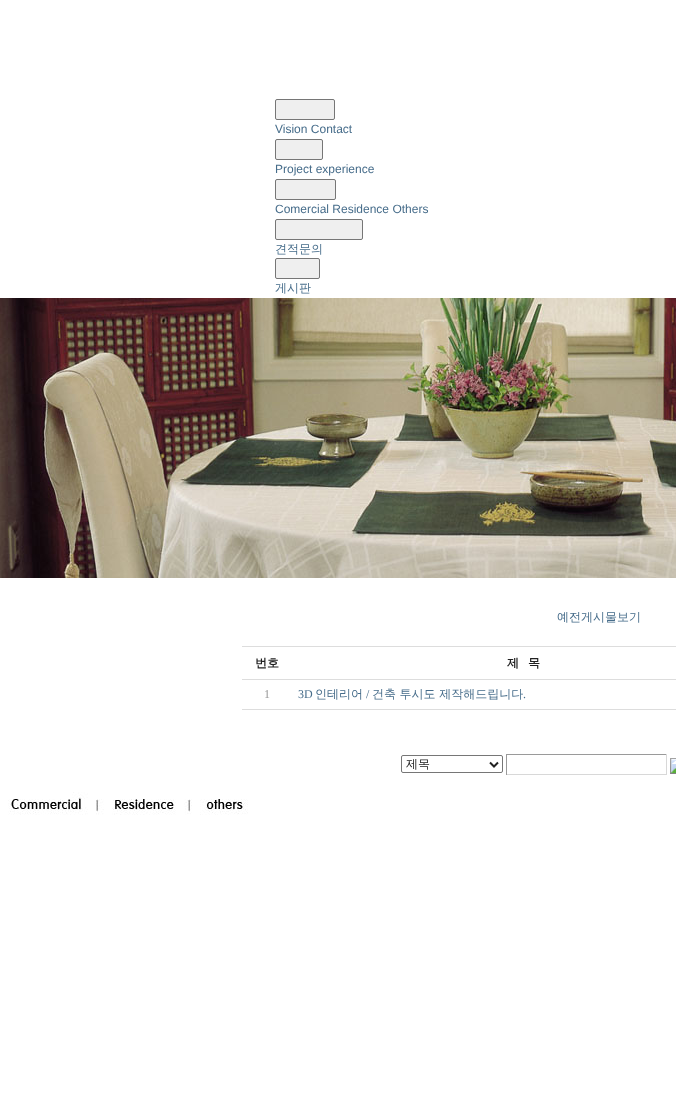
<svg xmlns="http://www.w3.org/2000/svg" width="676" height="1105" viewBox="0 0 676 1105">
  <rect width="100%" height="100%" fill="rgb(255,255,255)"/>
  <rect x="275.5" y="99.5" width="59" height="20" rx="1.5" fill="rgb(239,239,239)" stroke="rgb(118,118,118)"/>
  <text x="275" y="133" font-family="Liberation Sans" font-size="12" fill="rgb(70,108,138)">Vision Contact</text>
  <rect x="275.5" y="139.5" width="47" height="20" rx="1.5" fill="rgb(239,239,239)" stroke="rgb(118,118,118)"/>
  <text x="275" y="173" font-family="Liberation Sans" font-size="12" fill="rgb(70,108,138)">Project experience</text>
  <rect x="275.5" y="179.5" width="60" height="20" rx="1.5" fill="rgb(239,239,239)" stroke="rgb(118,118,118)"/>
  <text x="275" y="213" font-family="Liberation Sans" font-size="12" fill="rgb(70,108,138)">Comercial Residence Others</text>
  <rect x="275.5" y="219.5" width="87" height="20" rx="1.5" fill="rgb(239,239,239)" stroke="rgb(118,118,118)"/>
  <text x="275" y="253" font-family="WenQuanYi Zen Hei" font-size="12" font-weight="500" fill="rgb(70,108,138)">견적문의</text>
  <rect x="275.5" y="258.5" width="44" height="20" rx="1.5" fill="rgb(239,239,239)" stroke="rgb(118,118,118)"/>
  <text x="275" y="292" font-family="WenQuanYi Zen Hei" font-size="12" font-weight="500" fill="rgb(70,108,138)">게시판</text>
  <image x="0" y="298" width="676" height="280" href="pic1.png"/>
  <text x="557" y="621" font-family="WenQuanYi Zen Hei" font-size="12" font-weight="500" fill="rgb(70,108,138)">예전게시물보기</text>
  <rect x="242" y="646" width="434" height="1" fill="rgb(221,221,221)"/>
  <rect x="242" y="679" width="434" height="1" fill="rgb(221,221,221)"/>
  <g font-family="WenQuanYi Zen Hei" font-size="12" font-weight="bold" fill="rgb(34,34,34)">
    <text x="255" y="667">번호</text>
    <text x="507" y="667">제</text>
    <text x="528" y="667">목</text>
  </g>
  <rect x="242" y="709" width="434" height="1" fill="rgb(221,221,221)"/>
  <text x="264" y="698" font-family="Liberation Serif" font-size="12" fill="rgb(153,153,153)">1</text>
  <text x="298" y="698" font-family="Liberation Serif" font-size="12" fill="rgb(70,108,138)">3D</text>
  <text x="315" y="698" font-family="WenQuanYi Zen Hei" font-size="12" font-weight="500" fill="rgb(70,108,138)">인테리어</text>
  <text x="366" y="698" font-family="Liberation Serif" font-size="12" fill="rgb(70,108,138)">/</text>
  <text x="372" y="698" font-family="WenQuanYi Zen Hei" font-size="12" font-weight="500" fill="rgb(70,108,138)">건축 투시도 제작해드립니다</text>
  <text x="523" y="698" font-family="Liberation Serif" font-size="12" fill="rgb(70,108,138)">.</text>
  <rect x="401.5" y="755.5" width="101" height="17" rx="1.5" fill="none" stroke="rgb(118,118,118)"/>
  <path d="M490 762.5L494 766.5L498 762.5" fill="none" stroke="rgb(34,34,34)" stroke-width="2"/>
  <text x="406" y="768" font-family="WenQuanYi Zen Hei" font-size="12" font-weight="500" fill="rgb(34,34,34)">제목</text>
  <rect x="506" y="754" width="161" height="1" fill="rgb(154,154,154)"/>
  <rect x="666" y="754" width="1" height="21" fill="rgb(216,216,216)"/>
  <rect x="506" y="774" width="161" height="1" fill="rgb(216,216,216)"/>
  <rect x="506" y="754" width="1" height="21" fill="rgb(154,154,154)"/>
  <image x="670" y="758" width="6" height="16" href="pic2.png"/>
  <image x="8" y="792" width="240" height="23" href="pic3.png"/>
</svg>
